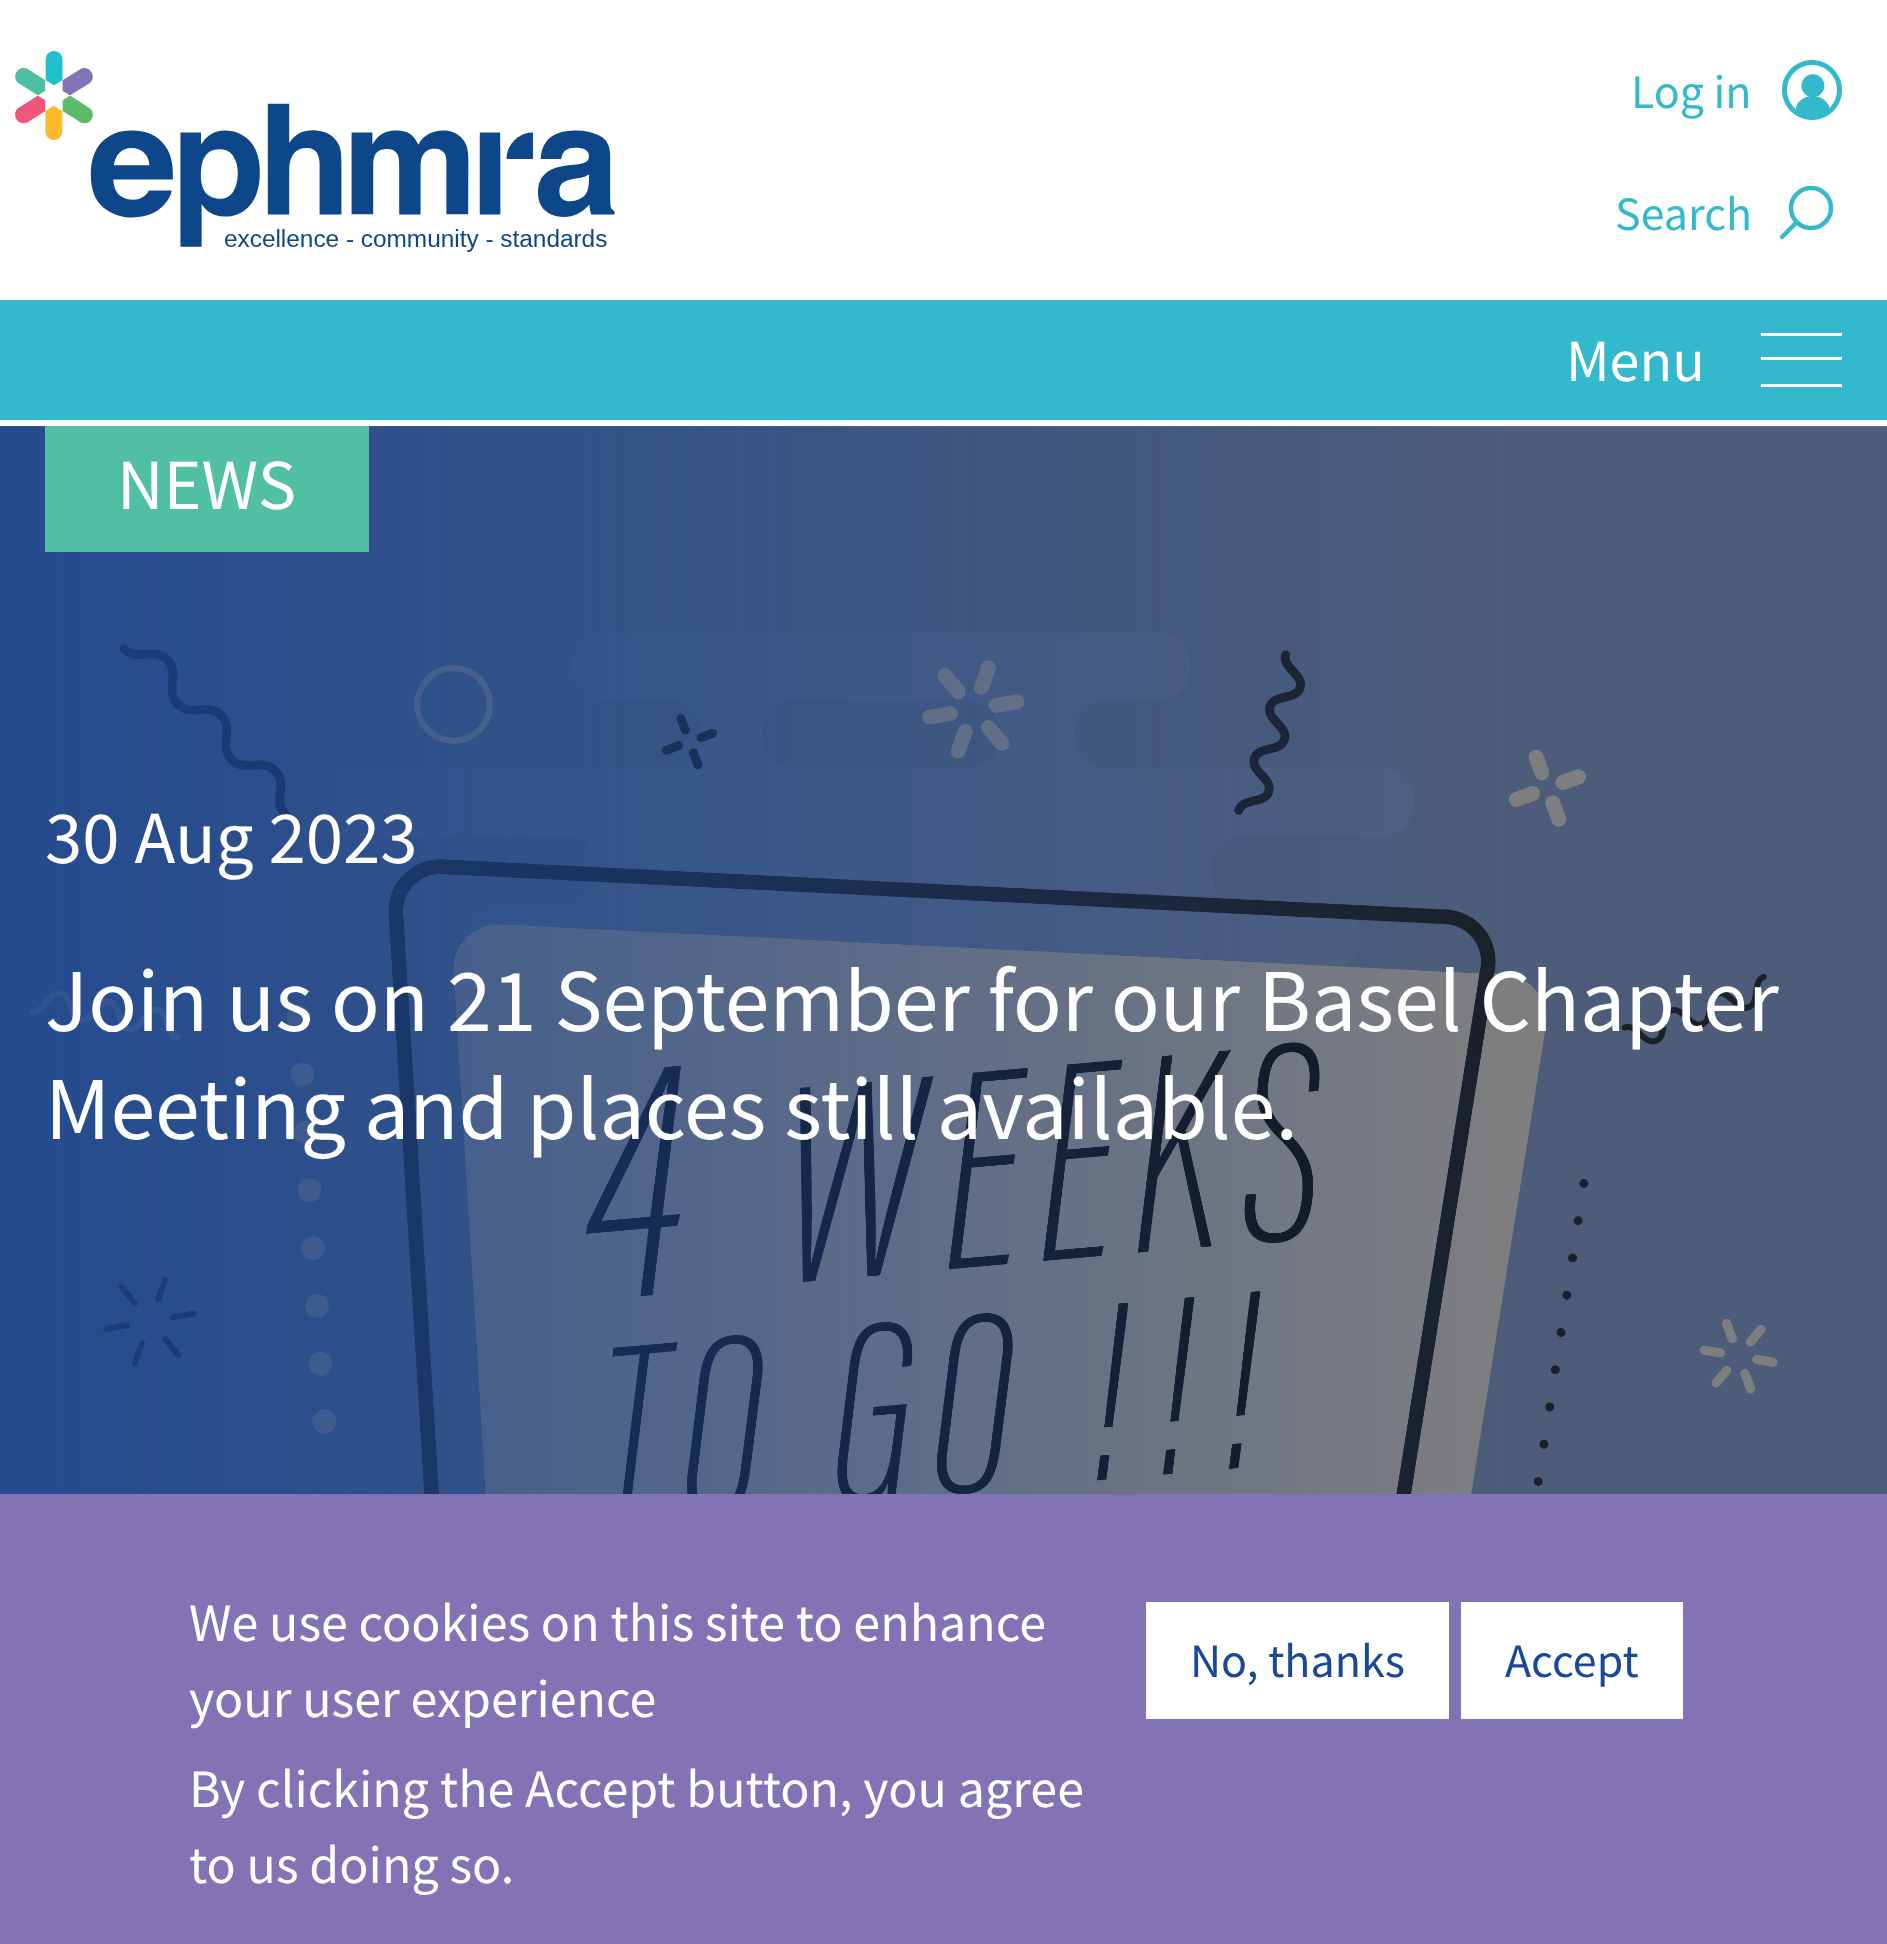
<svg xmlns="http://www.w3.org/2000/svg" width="1887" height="1944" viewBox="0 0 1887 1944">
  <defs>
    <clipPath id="clip1"><rect x="1779" y="186" width="54" height="54"/></clipPath>
  </defs>
  <rect width="100%" height="100%" fill="rgb(255,255,255)"/>
  <rect x="0" y="300" width="1887" height="120" fill="rgb(51,185,203)"/>
  <image x="15" y="51" width="600" height="201" href="pic1.png"/>
  <text x="1631" y="108" font-family="Source Sans Pro" font-size="48" fill="rgb(51,185,203)">Log in</text>
  <image x="1782" y="60" width="60" height="60" href="pic2.png"/>
  <text x="1615" y="230" font-family="Source Sans Pro" font-size="48" fill="rgb(51,185,203)">Search</text>
  <g clip-path="url(#clip1)">
    <circle cx="1811" cy="208" r="20" fill="none" stroke="rgb(51,185,203)" stroke-width="4.4"/>
  </g>
  <path d="M1782 237L1795.5 223.5" fill="none" stroke="rgb(51,185,203)" stroke-width="4.4" stroke-linecap="round"/>
  <rect x="1761" y="333" width="81" height="3" fill="rgb(255,255,255)"/>
  <text x="1566" y="381" font-family="Source Sans Pro" font-size="60" fill="rgb(255,255,255)">Menu</text>
  <rect x="1761" y="357" width="81" height="3" fill="rgb(255,255,255)"/>
  <rect x="1761" y="384" width="81" height="3" fill="rgb(255,255,255)"/>
  <rect x="0" y="420" width="1887" height="3" fill="rgb(245,249,251)"/>
  <image x="0" y="426" width="1887" height="1068" href="pic3.png"/>
  <rect x="45" y="426" width="324" height="126" fill="rgb(80,191,162)"/>
  <text x="117" y="509" font-family="Source Sans Pro" font-size="72" fill="rgb(255,255,255)">NEWS</text>
  <text x="45" y="863" font-family="Source Sans Pro" font-size="75" fill="rgb(255,255,255)">30 Aug 2023</text>
  <g font-family="Source Sans Pro" font-size="90" fill="rgb(255,255,255)">
    <text>
      <tspan x="45" y="1031">Join us on 21 September for our Basel Chapter</tspan>
      <tspan x="45" y="1139">Meeting and places still available.</tspan>
    </text>
  </g>
  <rect x="0" y="1494" width="1887" height="450" fill="rgb(130,115,181)"/>
  <g font-family="Source Sans Pro" font-size="54" fill="rgb(255,255,255)">
    <text>
      <tspan x="189" y="1641">We use cookies on this site to enhance</tspan>
      <tspan x="189" y="1717">your user experience</tspan>
      <tspan x="189" y="1807">By clicking the Accept button, you agree</tspan>
      <tspan x="189" y="1883">to us doing so.</tspan>
    </text>
  </g>
  <rect x="1146" y="1602" width="303" height="117" fill="rgb(255,255,255)"/>
  <text x="1190" y="1677" font-family="Source Sans Pro" font-size="48" fill="rgb(26,71,150)">No, thanks</text>
  <rect x="1461" y="1602" width="222" height="117" fill="rgb(255,255,255)"/>
  <text x="1505" y="1677" font-family="Source Sans Pro" font-size="48" fill="rgb(26,71,150)">Accept</text>
</svg>
